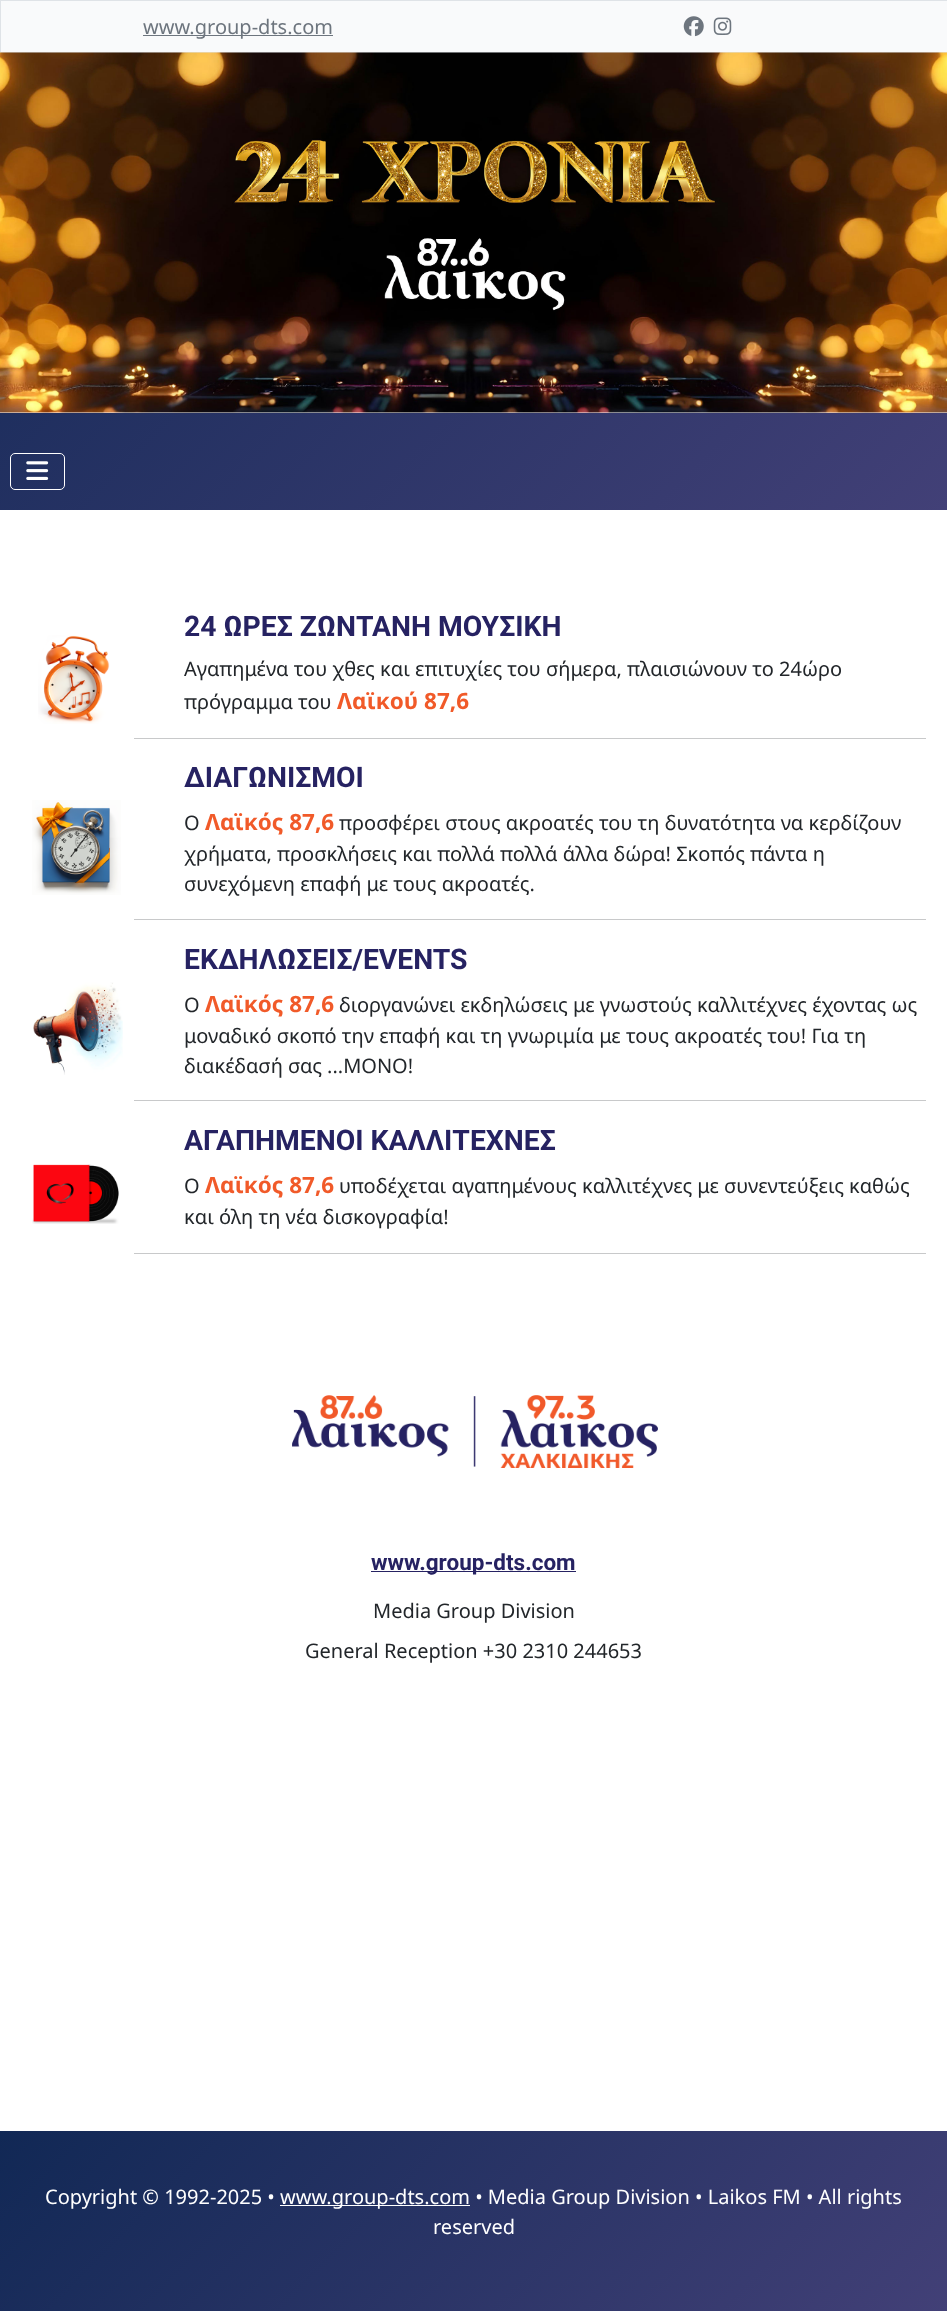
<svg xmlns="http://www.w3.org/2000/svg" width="947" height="2311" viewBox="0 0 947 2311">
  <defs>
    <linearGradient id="g1" gradientUnits="userSpaceOnUse" x1="109" y1="-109" x2="838" y2="619"><stop offset="0" stop-color="rgb(17,40,85)"/><stop offset="1" stop-color="rgb(66,64,119)"/></linearGradient>
    <linearGradient id="g2" gradientUnits="userSpaceOnUse" x1="192" y1="1939" x2="756" y2="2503"><stop offset="0" stop-color="rgb(17,40,85)"/><stop offset="1" stop-color="rgb(66,64,119)"/></linearGradient>
  </defs>
  <rect width="100%" height="100%" fill="rgb(255,255,255)"/>
  <rect x="0" y="413" width="947" height="97" fill="url(#g1)"/>
  <rect x="0.5" y="0.5" width="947" height="52" fill="rgb(249,250,251)" stroke="rgb(223,227,231)"/>
  <rect x="143" y="35" width="190" height="1" fill="rgb(109,117,126)"/>
  <text x="143" y="34" font-family="Noto Sans" font-size="20" fill="rgb(109,117,126)">www.group-dts.com</text>
  <image x="683" y="16" width="21" height="21" href="pic1.png"/>
  <image x="713" y="17" width="19" height="18" href="pic2.png"/>
  <image x="0" y="52" width="947" height="361" href="pic3.png"/>
  <rect x="10.5" y="453.5" width="54" height="36" rx="4.5" fill="none" stroke="rgb(255,255,255)"/>
  <image x="26" y="461" width="23" height="19" href="pic4.png"/>
  <image x="38" y="635" width="72" height="89" href="pic5.png"/>
  <text x="184" y="636" font-family="Roboto" font-size="28.3" font-weight="bold" fill="rgb(38,34,98)">24 ΩΡΕΣ ΖΩΝΤΑΝΗ ΜΟΥΣΙΚΗ</text>
  <g font-family="Noto Sans" font-size="20" fill="rgb(34,38,42)">
    <text>
      <tspan x="184" y="676">Αγαπημένα του χθες και επιτυχίες του σήμερα, πλαισιώνουν το 24ώρο</tspan>
      <tspan x="184" y="709">πρόγραμμα του</tspan>
    </text>
  </g>
  <text x="337" y="709" font-family="Noto Sans" font-size="22.5" font-weight="bold" fill="rgb(241,90,41)">Λαϊκoύ 87,6</text>
  <rect x="134" y="738" width="792" height="1" fill="rgb(200,201,202)"/>
  <image x="32" y="800" width="89" height="95" href="pic6.png"/>
  <text x="184" y="787" font-family="Roboto" font-size="28.3" font-weight="bold" fill="rgb(38,34,98)">ΔΙΑΓΩΝΙΣΜΟΙ</text>
  <text x="184" y="830" font-family="Noto Sans" font-size="20" fill="rgb(34,38,42)">Ο</text>
  <text x="205" y="830" font-family="Noto Sans" font-size="22.5" font-weight="bold" fill="rgb(241,90,41)">Λαϊκός 87,6</text>
  <g font-family="Noto Sans" font-size="20" fill="rgb(34,38,42)">
    <text x="339" y="830">προσφέρει στους ακροατές του τη δυνατότητα να κερδίζουν</text>
    <text>
      <tspan x="184" y="861">χρήματα, προσκλήσεις και πολλά πολλά άλλα δώρα! Σκοπός πάντα η</tspan>
      <tspan x="184" y="891">συνεχόμενη επαφή με τους ακροατές.</tspan>
    </text>
  </g>
  <rect x="134" y="919" width="792" height="1" fill="rgb(200,201,202)"/>
  <image x="33" y="982" width="90" height="93" href="pic7.png"/>
  <text x="184" y="969" font-family="Roboto" font-size="28.3" font-weight="bold" fill="rgb(38,34,98)">ΕΚΔΗΛΩΣΕΙΣ/EVENTS</text>
  <text x="184" y="1012" font-family="Noto Sans" font-size="20" fill="rgb(34,38,42)">Ο</text>
  <text x="205" y="1012" font-family="Noto Sans" font-size="22.5" font-weight="bold" fill="rgb(241,90,41)">Λαϊκός 87,6</text>
  <g font-family="Noto Sans" font-size="20" fill="rgb(34,38,42)">
    <text x="339" y="1012">διοργανώνει εκδηλώσεις με γνωστούς καλλιτέχνες έχοντας ως</text>
    <text>
      <tspan x="184" y="1043">μοναδικό σκοπό την επαφή και τη γνωριμία με τους ακροατές του! Για τη</tspan>
      <tspan x="184" y="1073">διακέδασή σας ...ΜΟΝΟ!</tspan>
    </text>
  </g>
  <rect x="134" y="1100" width="792" height="1" fill="rgb(200,201,202)"/>
  <image x="32" y="1164" width="87" height="60" href="pic8.png"/>
  <text x="184" y="1150" font-family="Roboto" font-size="28.3" font-weight="bold" fill="rgb(38,34,98)">ΑΓΑΠΗΜΕΝΟΙ ΚΑΛΛΙΤΕΧΝΕΣ</text>
  <text x="184" y="1193" font-family="Noto Sans" font-size="20" fill="rgb(34,38,42)">O</text>
  <text x="205" y="1193" font-family="Noto Sans" font-size="22.5" font-weight="bold" fill="rgb(241,90,41)">Λαϊκός 87,6</text>
  <g font-family="Noto Sans" font-size="20" fill="rgb(34,38,42)">
    <text x="339" y="1193">υποδέχεται αγαπημένους καλλιτέχνες με συνεντεύξεις καθώς</text>
    <text x="184" y="1224">και όλη τη νέα δισκογραφία!</text>
  </g>
  <rect x="134" y="1253" width="792" height="1" fill="rgb(200,201,202)"/>
  <image x="292" y="1395" width="366" height="73" href="pic9.png"/>
  <rect x="371" y="1571" width="205" height="1" fill="rgb(38,34,98)"/>
  <text x="371" y="1570" font-family="Roboto" font-size="22.5" font-weight="bold" fill="rgb(38,34,98)">www.group-dts.com</text>
  <g font-family="Noto Sans" font-size="20" fill="rgb(34,38,42)">
    <text x="373" y="1618">Media Group Division</text>
    <text x="305" y="1658">General Reception +30 2310 244653</text>
  </g>
  <rect x="0" y="2131" width="947" height="180" fill="url(#g2)"/>
  <text x="45" y="2204" font-family="Noto Sans" font-size="20" fill="rgb(255,255,255)">Copyright © 1992-2025 •</text>
  <rect x="280" y="2205" width="190" height="1" fill="rgb(255,255,255)"/>
  <g font-family="Noto Sans" font-size="20" fill="rgb(255,255,255)">
    <text x="280" y="2204">www.group-dts.com • Media Group Division • Laikos FM • All rights</text>
    <text x="433" y="2234">reserved</text>
  </g>
</svg>
